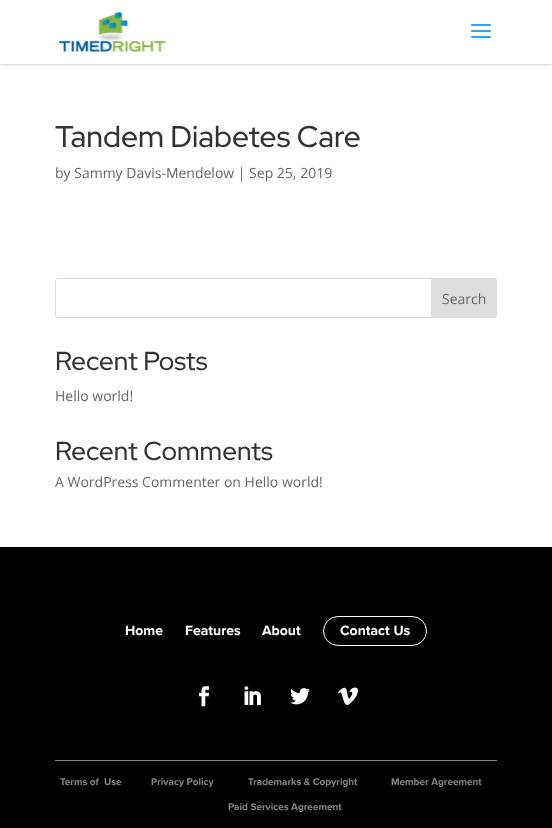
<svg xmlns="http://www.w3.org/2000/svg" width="552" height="828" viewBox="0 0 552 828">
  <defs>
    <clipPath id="clip1"><rect x="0" y="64" width="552" height="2"/></clipPath>
    <clipPath id="clip2"><rect x="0" y="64" width="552" height="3"/></clipPath>
  </defs>
  <rect width="100%" height="100%" fill="rgb(255,255,255)"/>
  <g clip-path="url(#clip1)">
    <rect x="0" y="1" width="552" height="64" fill="rgba(80,80,80,0.1)" filter="blur(1px)"/>
  </g>
  <g clip-path="url(#clip2)">
    <rect x="0" y="1" width="552" height="64" fill="rgba(80,80,80,0.15)" filter="blur(1.5px)"/>
  </g>
  <image x="59" y="12" width="107" height="40" href="pic1.png"/>
  <image x="471" y="24" width="20" height="14" href="pic2.png"/>
  <text x="55" y="147" font-family="Red Hat Display" font-size="30" font-weight="500" fill="rgb(51,51,51)">Tandem Diabetes Care</text>
  <text x="55" y="178" font-family="Open Sans" font-size="14" fill="rgb(102,102,102)">by Sammy Davis-Mendelow | Sep 25, 2019</text>
  <rect x="55.5" y="278.5" width="441" height="39" rx="2.5" fill="none" stroke="rgb(221,221,221)"/>
  <path d="M431.5 278.5H494C495.5 278.5 496.5 279.5 496.5 281V315C496.5 316.5 495.5 317.5 494 317.5H431.5Z" fill="rgb(221,221,221)" stroke="rgb(221,221,221)"/>
  <text x="442" y="304" font-family="Open Sans" font-size="14" fill="rgb(102,102,102)">Search</text>
  <text x="55" y="370" font-family="Red Hat Display" font-size="26" font-weight="500" fill="rgb(51,51,51)">Recent Posts</text>
  <text x="55" y="401" font-family="Open Sans" font-size="14" fill="rgb(102,102,102)">Hello world!</text>
  <text x="55" y="460" font-family="Red Hat Display" font-size="26" font-weight="500" fill="rgb(51,51,51)">Recent Comments</text>
  <text x="55" y="487" font-family="Open Sans" font-size="14" fill="rgb(102,102,102)">A WordPress Commenter on Hello world!</text>
  <rect x="0" y="547" width="552" height="281" fill="rgb(0,0,0)"/>
  <rect x="55" y="760" width="442" height="1" fill="rgb(133,133,133)"/>
  <g font-family="Proxima Nova" font-size="14" font-weight="bold" fill="rgb(255,255,255)">
    <text x="125" y="635">Home</text>
    <text x="185" y="635">Features</text>
    <text x="262" y="635">About</text>
  </g>
  <rect x="323.5" y="616.5" width="103" height="29" rx="14.5" fill="none" stroke="rgb(255,255,255)"/>
  <text x="340" y="635" font-family="Proxima Nova" font-size="14" font-weight="bold" fill="rgb(255,255,255)">Contact Us</text>
  <image x="199" y="686" width="10" height="21" href="pic3.png"/>
  <image x="244" y="686" width="17" height="19" href="pic4.png"/>
  <image x="290" y="688" width="20" height="17" href="pic5.png"/>
  <image x="338" y="687" width="20" height="18" href="pic6.png"/>
  <g font-family="Proxima Nova" font-size="10" font-weight="bold" fill="rgb(133,133,133)">
    <text x="60" y="785" xml:space="preserve">Terms of  Use</text>
    <text x="151" y="785">Privacy Policy</text>
    <text x="248" y="785">Trademarks &amp; Copyright</text>
    <text x="391" y="785">Member Agreement</text>
    <text x="228" y="810">Paid Services Agreement</text>
  </g>
</svg>
